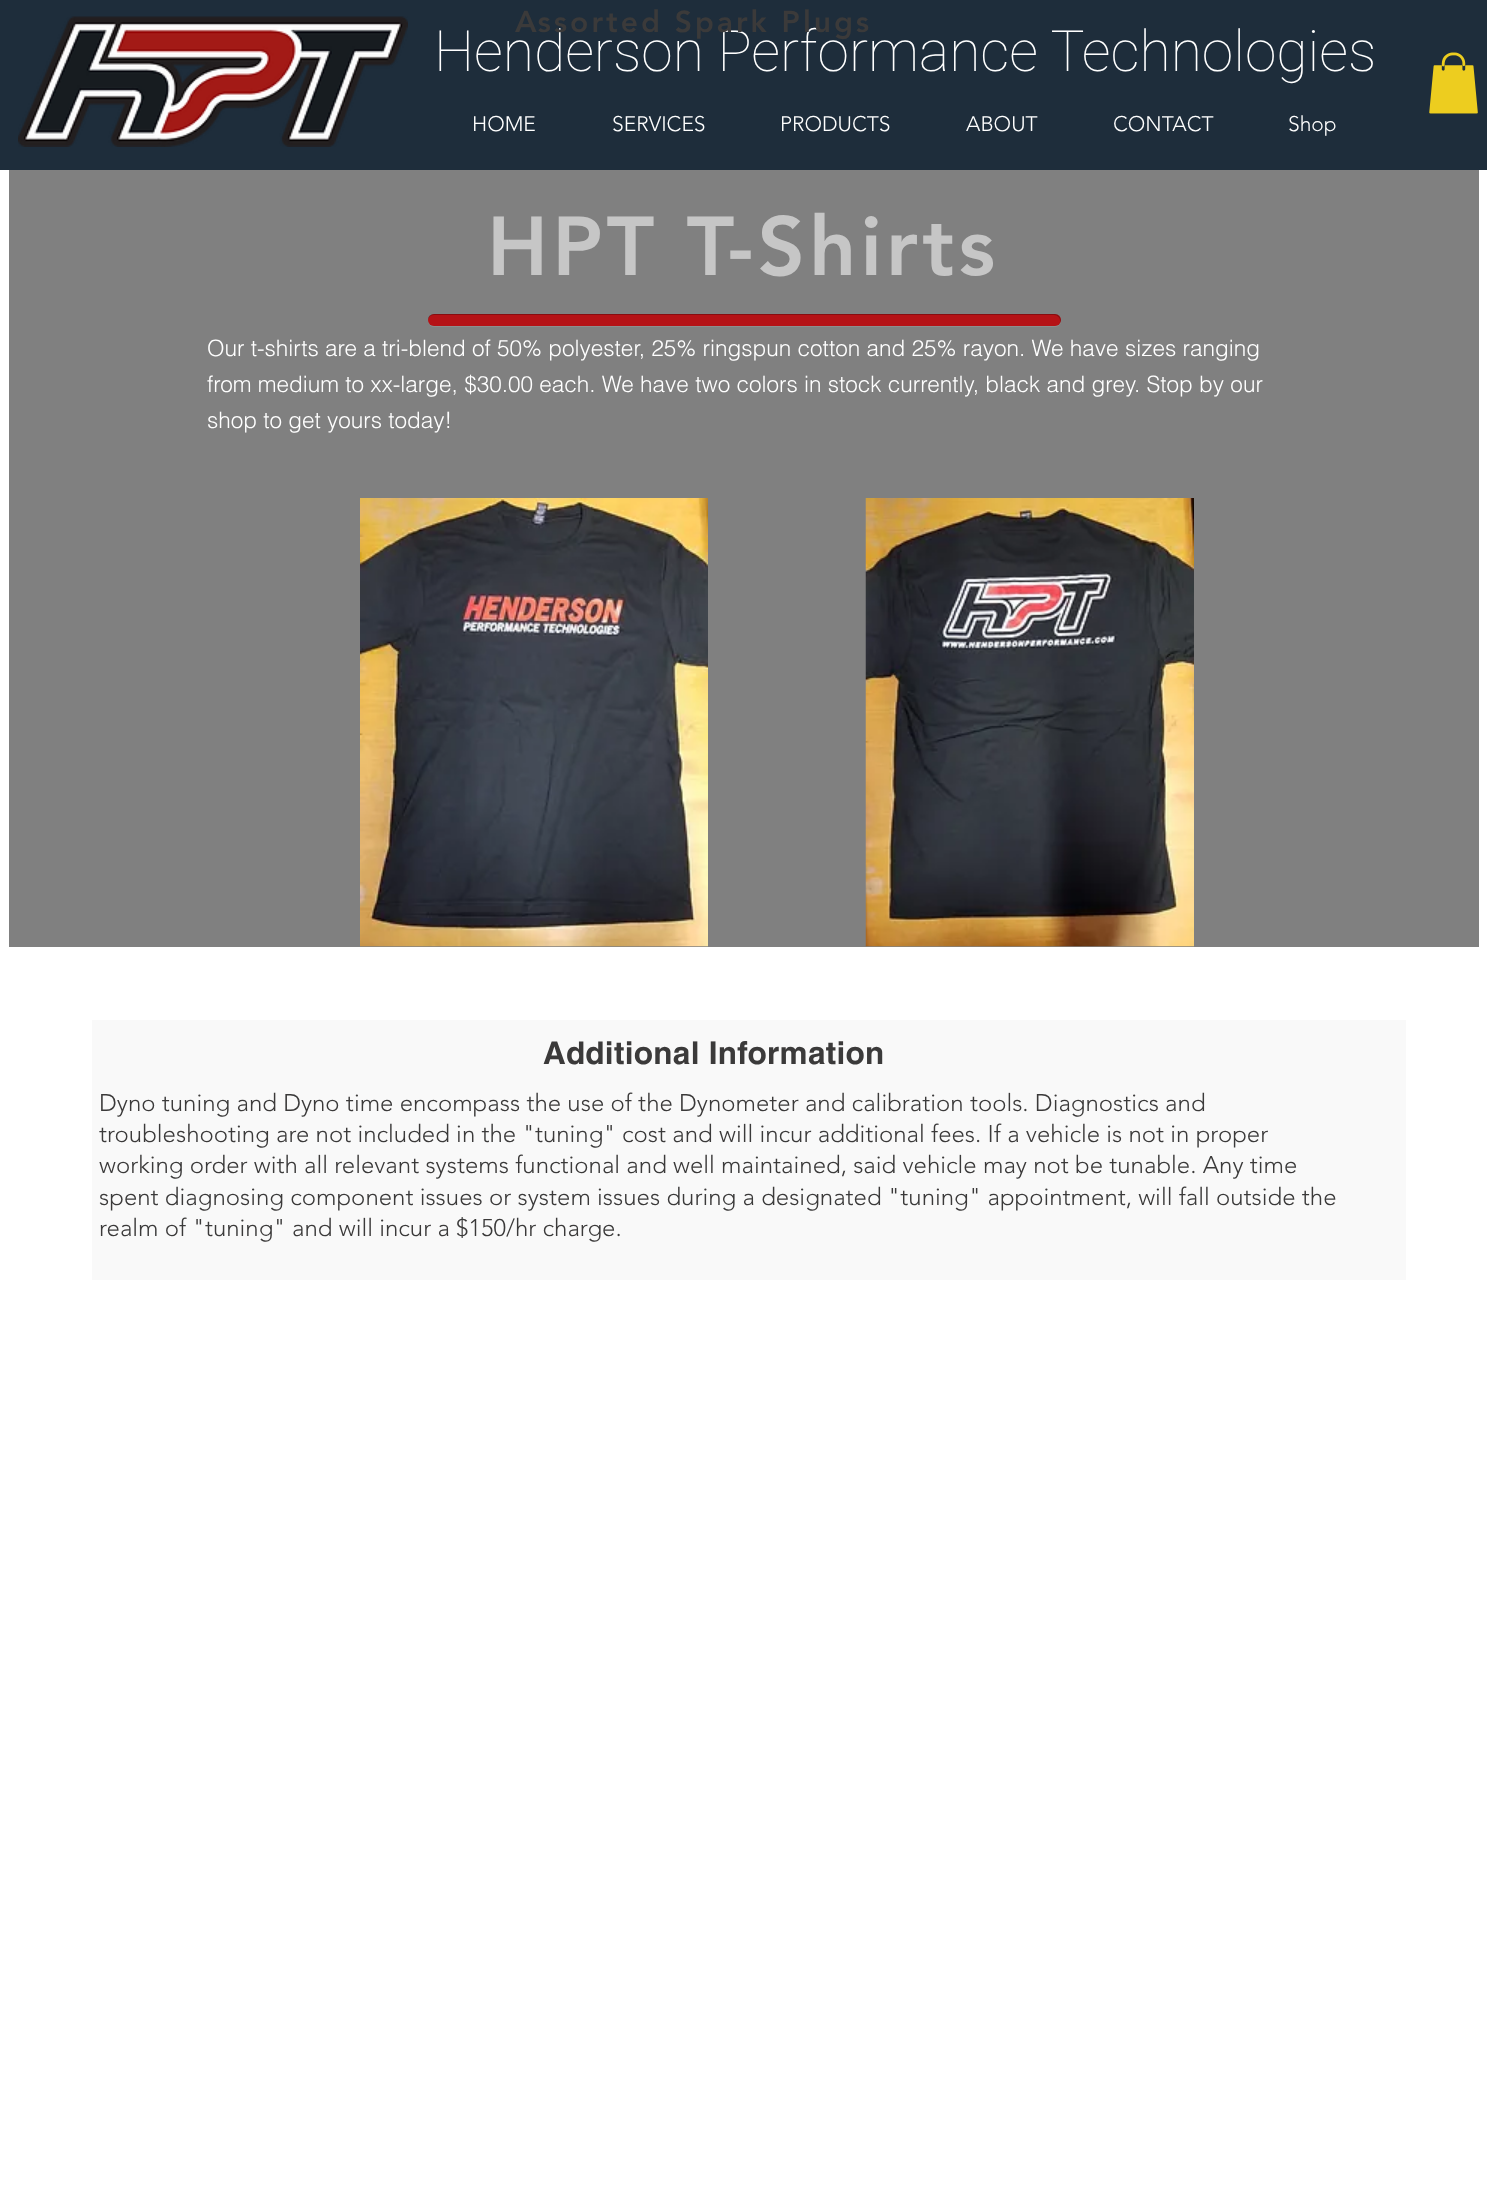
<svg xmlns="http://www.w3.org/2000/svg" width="1487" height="2204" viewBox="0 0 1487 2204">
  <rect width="100%" height="100%" fill="rgb(255,255,255)"/>
  <rect x="0" y="0" width="1487" height="170" fill="rgb(30,45,59)"/>
  <image x="18" y="16" width="390" height="131" href="pic1.png"/>
  <text x="434" y="71" font-family="Roboto" font-size="57" font-weight="100" fill="rgb(255,255,255)">Henderson Performance Technologies</text>
  <text x="515" y="32" font-family="'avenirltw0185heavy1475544'" font-size="30" font-weight="900" letter-spacing="3" fill="rgb(59,58,58)">Assorted Spark Plugs</text>
  <image x="1429" y="52" width="49" height="62" href="pic2.png"/>
  <g font-family="'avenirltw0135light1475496'" font-size="21" font-weight="300" fill="rgb(255,255,255)">
    <text x="472" y="131">HOME</text>
    <text x="612" y="131">SERVICES</text>
    <text x="780" y="131">PRODUCTS</text>
    <text x="966" y="131">ABOUT</text>
    <text x="1113" y="131">CONTACT</text>
    <text x="1288" y="131">Shop</text>
  </g>
  <rect x="9" y="170" width="1470" height="777" fill="rgb(128,128,128)"/>
  <text x="487" y="275" font-family="'avenirltw0185heavy1475544'" font-size="82.5" font-weight="900" letter-spacing="4.1" fill="rgb(198,198,198)">HPT T-Shirts</text>
  <path d="M428 322C429 325 431 327 434 327H1055C1058 327 1061 324 1061 321L1060 318V320C1060 323 1058 326 1054 326H434C431 326 429 324 428 322Z" fill="rgb(141,141,141)"/>
  <rect x="428" y="314" width="633" height="12" rx="6" fill="rgb(181,18,22)"/>
  <path d="M434 315H1054C1059 315 1062 321 1059 324C1063 321 1060 314 1055 314H434C432 314 429 315 428 318V320C428 318 430 315 434 315Z" fill="rgba(0,0,0,0.25)"/>
  <g font-family="helvetica" font-size="22.5" font-weight="300" fill="rgb(255,255,255)">
    <text>
      <tspan x="207" y="356">Our t-shirts are a tri-blend of 50% polyester, 25% ringspun cotton and 25% rayon. We have sizes ranging</tspan>
      <tspan x="207" y="392">from medium to xx-large, $30.00 each. We have two colors in stock currently, black and grey. Stop by our</tspan>
      <tspan x="207" y="428">shop to get yours today!</tspan>
    </text>
  </g>
  <image x="360" y="498" width="348" height="449" href="pic3.png"/>
  <image x="865" y="498" width="329" height="449" href="pic4.png"/>
  <rect x="92" y="1020" width="1314" height="260" fill="rgb(249,249,249)"/>
  <text x="543" y="1064" font-family="helvetica" font-size="31.5" font-weight="bold" letter-spacing="0.3" fill="rgb(59,58,58)">Additional Information</text>
  <g font-family="'avenirltw0135light1475496'" font-size="24" font-weight="300" fill="rgb(59,58,58)">
    <text>
      <tspan x="99" y="1111">Dyno tuning and Dyno time encompass the use of the Dynometer and calibration tools. Diagnostics and</tspan>
      <tspan x="99" y="1142">troubleshooting are not included in the "tuning" cost and will incur additional fees. If a vehicle is not in proper</tspan>
      <tspan x="99" y="1173">working order with all relevant systems functional and well maintained, said vehicle may not be tunable. Any time</tspan>
      <tspan x="99" y="1205">spent diagnosing component issues or system issues during a designated "tuning" appointment, will fall outside the</tspan>
      <tspan x="99" y="1236">realm of "tuning" and will incur a $150/hr charge.</tspan>
    </text>
  </g>
</svg>
